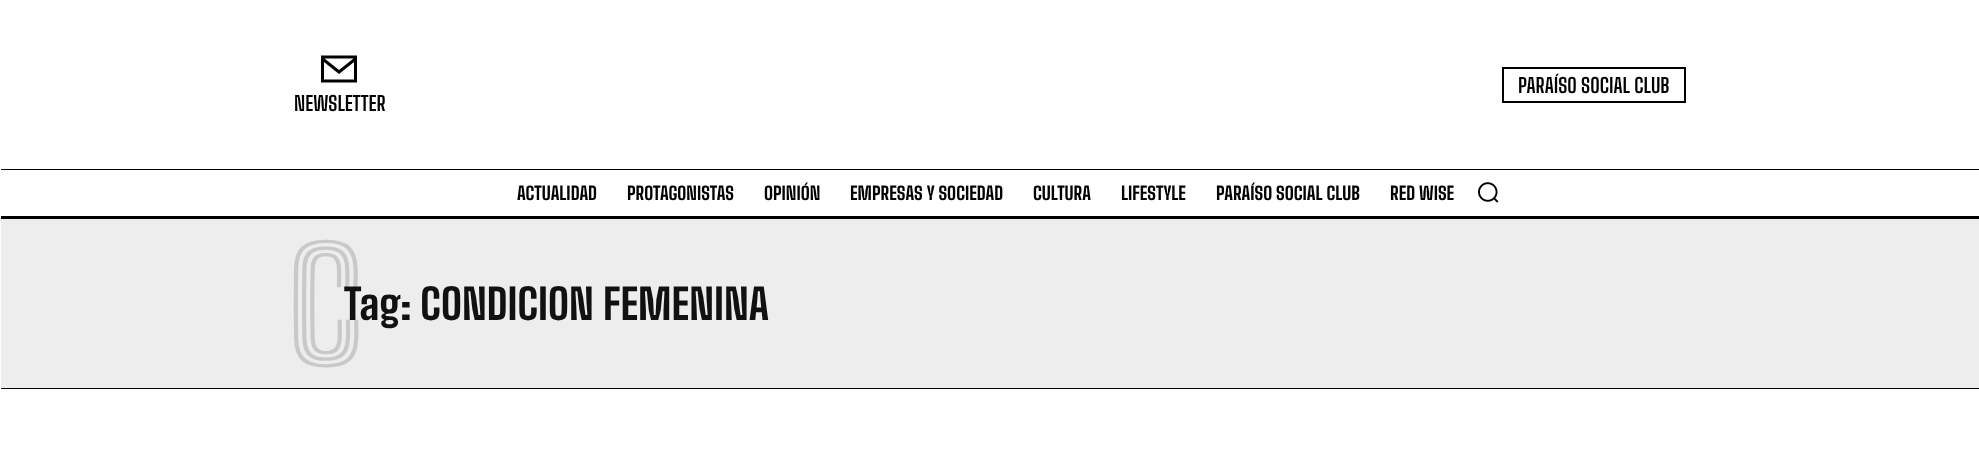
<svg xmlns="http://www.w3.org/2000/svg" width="1979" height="459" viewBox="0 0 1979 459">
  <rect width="100%" height="100%" fill="rgb(255,255,255)"/>
  <rect x="1503" y="68" width="182" height="34" fill="none" stroke="rgb(0,0,0)" stroke-width="2"/>
  <text x="1518" y="93" font-family="Big Shoulders Text" font-size="20" font-weight="bold" fill="rgb(0,0,0)">PARAÍSO SOCIAL CLUB</text>
  <path d="M321 55.5V82.5H357V55.5ZM353.5 58.5L339 70L324.5 58.5ZM324 79.5V62L339 74L354 62V79.5Z" fill="rgb(0,0,0)"/>
  <text x="294" y="111" font-family="Big Shoulders Text" font-size="20" font-weight="bold" fill="rgb(0,0,0)">NEWSLETTER</text>
  <rect x="1" y="169" width="1978" height="1" fill="rgb(0,0,0)"/>
  <rect x="1" y="216" width="1978" height="3" fill="rgb(0,0,0)"/>
  <g font-family="Big Shoulders Text" font-size="18" font-weight="800" fill="rgb(0,0,0)">
    <text x="517" y="200">ACTUALIDAD</text>
    <text x="627" y="200">PROTAGONISTAS</text>
    <text x="764" y="200">OPINIÓN</text>
    <text x="850" y="200">EMPRESAS Y SOCIEDAD</text>
    <text x="1033" y="200">CULTURA</text>
    <text x="1121" y="200">LIFESTYLE</text>
    <text x="1216" y="200">PARAÍSO SOCIAL CLUB</text>
    <text x="1390" y="200">RED WISE</text>
  </g>
  <image x="1478" y="182" width="21" height="21" href="pic1.png"/>
  <rect x="1" y="219" width="1978" height="169" fill="rgb(237,237,237)"/>
  <rect x="1" y="388" width="1978" height="1" fill="rgb(0,0,0)"/>
  <text x="287" y="366" font-family="Big Shoulders Inline Text" font-size="156" font-weight="800" fill="rgb(201,201,201)">C</text>
  <text x="344" y="320" font-family="Big Shoulders Text" font-size="42" font-weight="800" fill="rgb(17,17,17)">Tag: CONDICION FEMENINA</text>
</svg>
